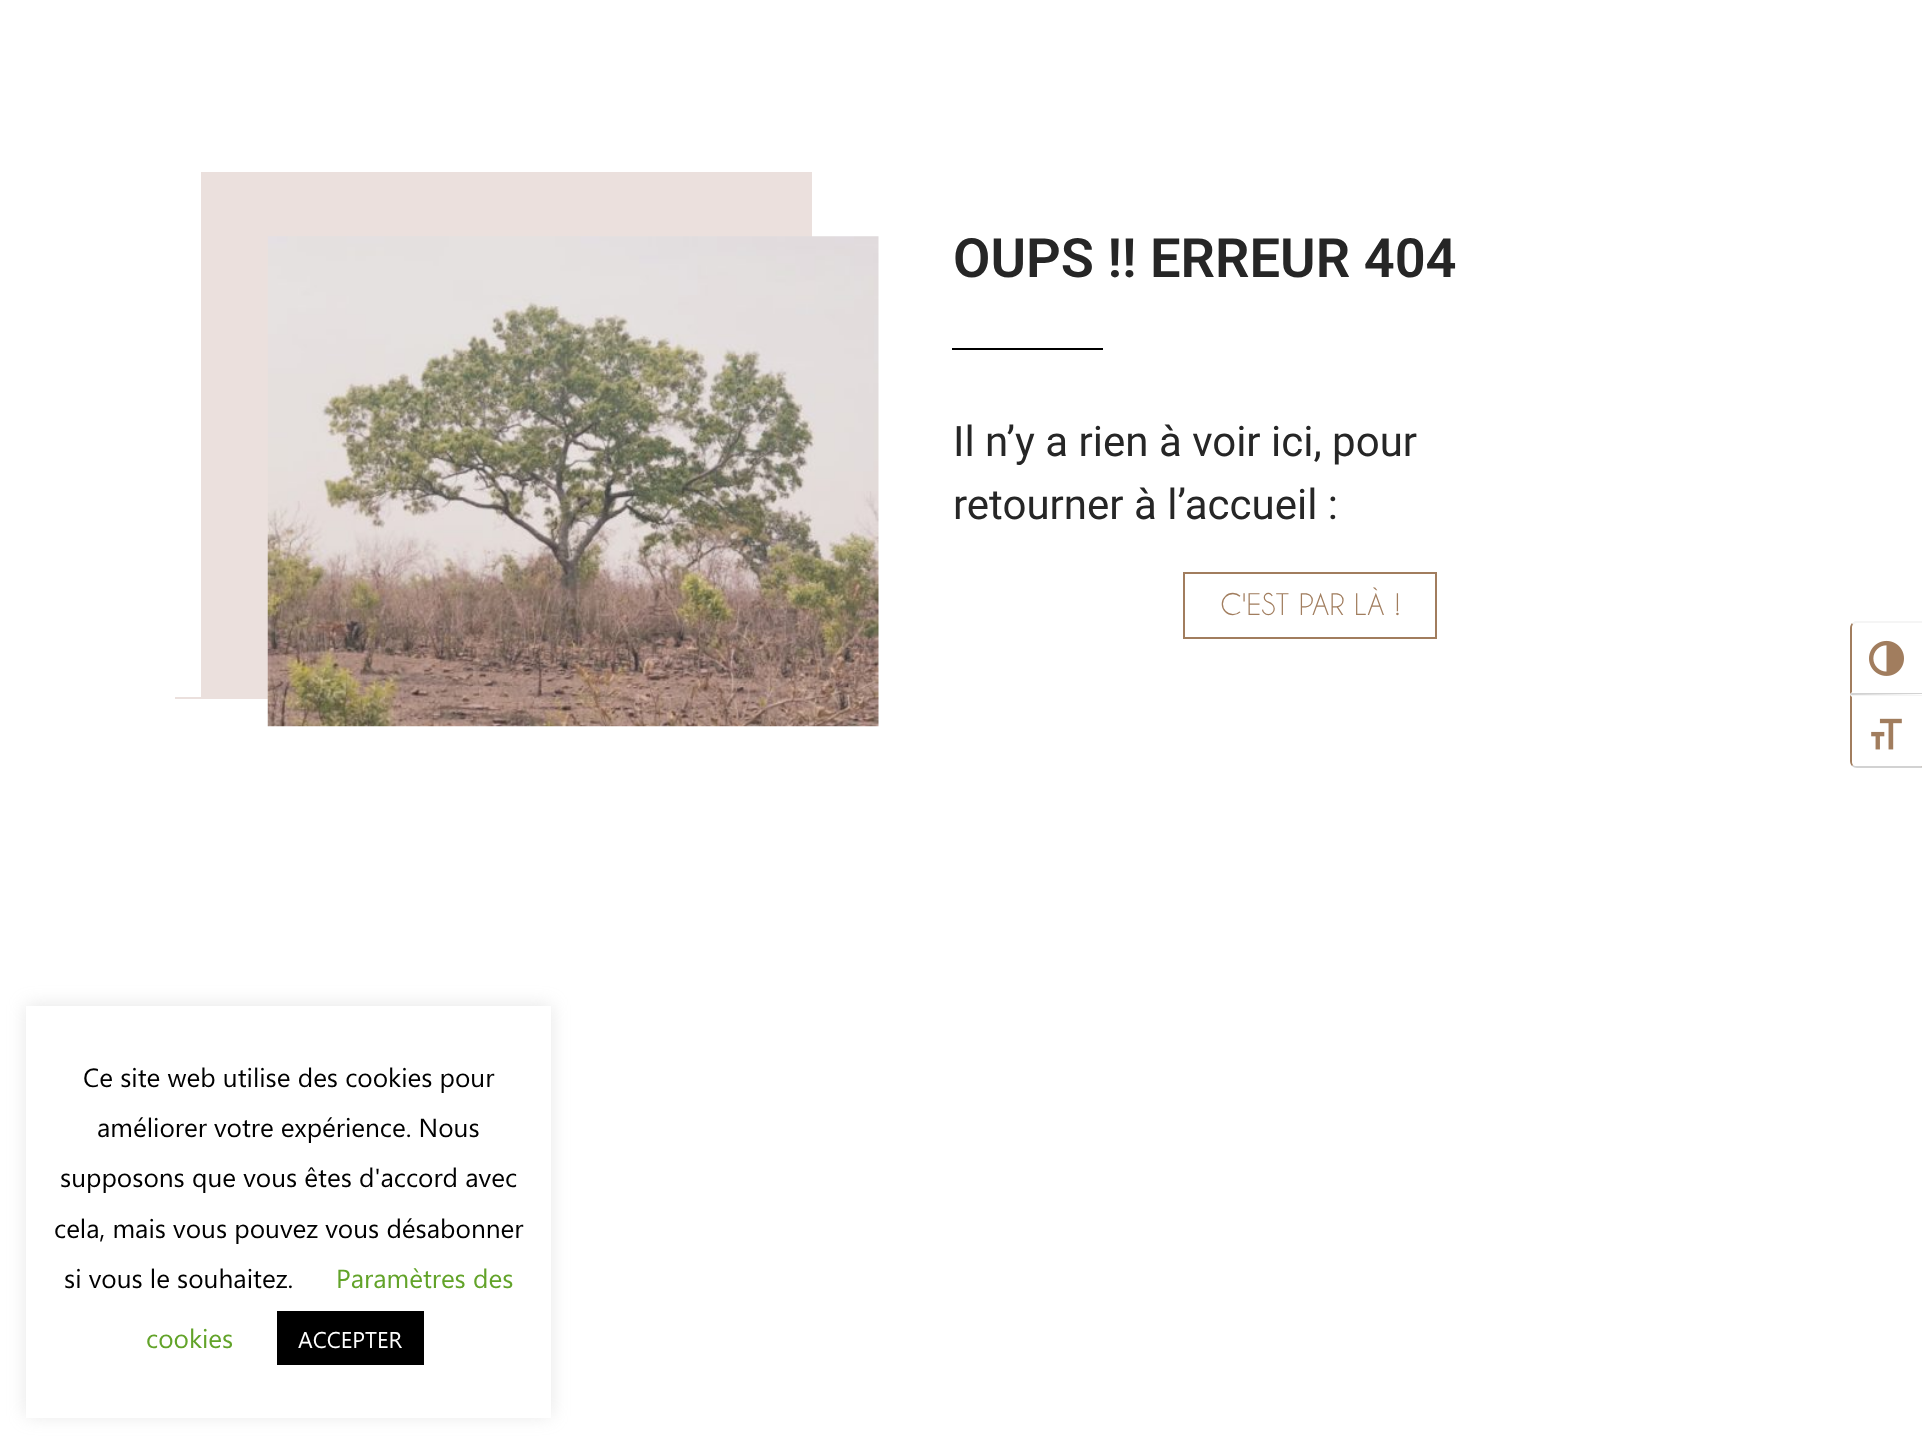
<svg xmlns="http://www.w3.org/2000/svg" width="1922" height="1443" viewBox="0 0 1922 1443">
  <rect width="100%" height="100%" fill="rgb(255,255,255)"/>
  <rect x="201" y="172" width="611" height="525" fill="rgb(235,224,221)"/>
  <rect x="175" y="697" width="93" height="2" fill="rgb(235,224,221)"/>
  <image x="267" y="236" width="612" height="491" href="pic1.png"/>
  <text x="953" y="277" font-family="Roboto" font-size="54.25" font-weight="600" fill="rgb(38,38,38)">OUPS !! ERREUR 404</text>
  <rect x="952" y="348" width="151" height="2" fill="rgb(0,0,0)"/>
  <g font-family="Roboto" font-size="42" fill="rgb(38,38,38)">
    <text>
      <tspan x="953" y="456">Il n’y a rien à voir ici, pour</tspan>
      <tspan x="953" y="519">retourner à l’accueil :</tspan>
    </text>
  </g>
  <rect x="1184" y="573" width="252" height="65" fill="none" stroke="rgb(161,125,94)" stroke-width="2"/>
  <text x="1220" y="615" font-family="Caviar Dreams" font-size="28" fill="rgb(161,125,94)">C'EST PAR LÀ !</text>
  <path d="M1857 623C1855 623 1854 624 1853 625L1852 623L1855 621H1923L1922 623Z" fill="rgb(245,245,245)"/>
  <path d="M1850 695L1852 692V693H1922L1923 694Z" fill="rgb(210,210,210)"/>
  <path d="M1850 694V628C1850 626 1851 624 1852 623L1853 625C1852 625 1852 627 1852 628V692Z" fill="rgb(161,125,94)"/>
  <image x="1869" y="640" width="35" height="36" href="pic2.png"/>
  <path d="M1850 695L1852 697V696H1922L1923 695Z" fill="rgb(245,245,245)"/>
  <path d="M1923 768V695L1922 696V766H1921Z" fill="rgb(161,125,94)"/>
  <path d="M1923 768L1921 766H1857C1856 766 1854 766 1853 765L1852 766C1853 767 1855 768 1857 768Z" fill="rgb(210,210,210)"/>
  <path d="M1850 695V761C1850 763 1851 765 1852 766L1853 765C1852 764 1852 762 1852 761V697Z" fill="rgb(161,125,94)"/>
  <image x="1871" y="718" width="31" height="32" href="pic3.png"/>
  <rect x="26" y="1005" width="525" height="411" fill="rgba(172,171,171,0.3)" filter="blur(9px)"/>
  <rect x="26" y="1006" width="525" height="412" fill="rgb(255,255,255)"/>
  <g font-family="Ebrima" font-size="26.25" fill="rgb(0,0,0)">
    <text x="83" y="1087">Ce site web utilise des cookies pour</text>
    <text x="97" y="1137">améliorer votre expérience. Nous</text>
    <text x="60" y="1187">supposons que vous êtes d'accord avec</text>
    <text x="54" y="1238">cela, mais vous pouvez vous désabonner</text>
    <text x="64" y="1288">si vous le souhaitez.</text>
  </g>
  <g font-family="Ebrima" font-size="26.25" fill="rgb(98,163,41)">
    <text x="336" y="1288">Paramètres des</text>
    <text x="146" y="1348">cookies</text>
  </g>
  <rect x="277" y="1311" width="147" height="54" fill="rgb(0,0,0)"/>
  <text x="298" y="1348" font-family="Ebrima" font-size="22.75" fill="rgb(255,255,255)">ACCEPTER</text>
</svg>
